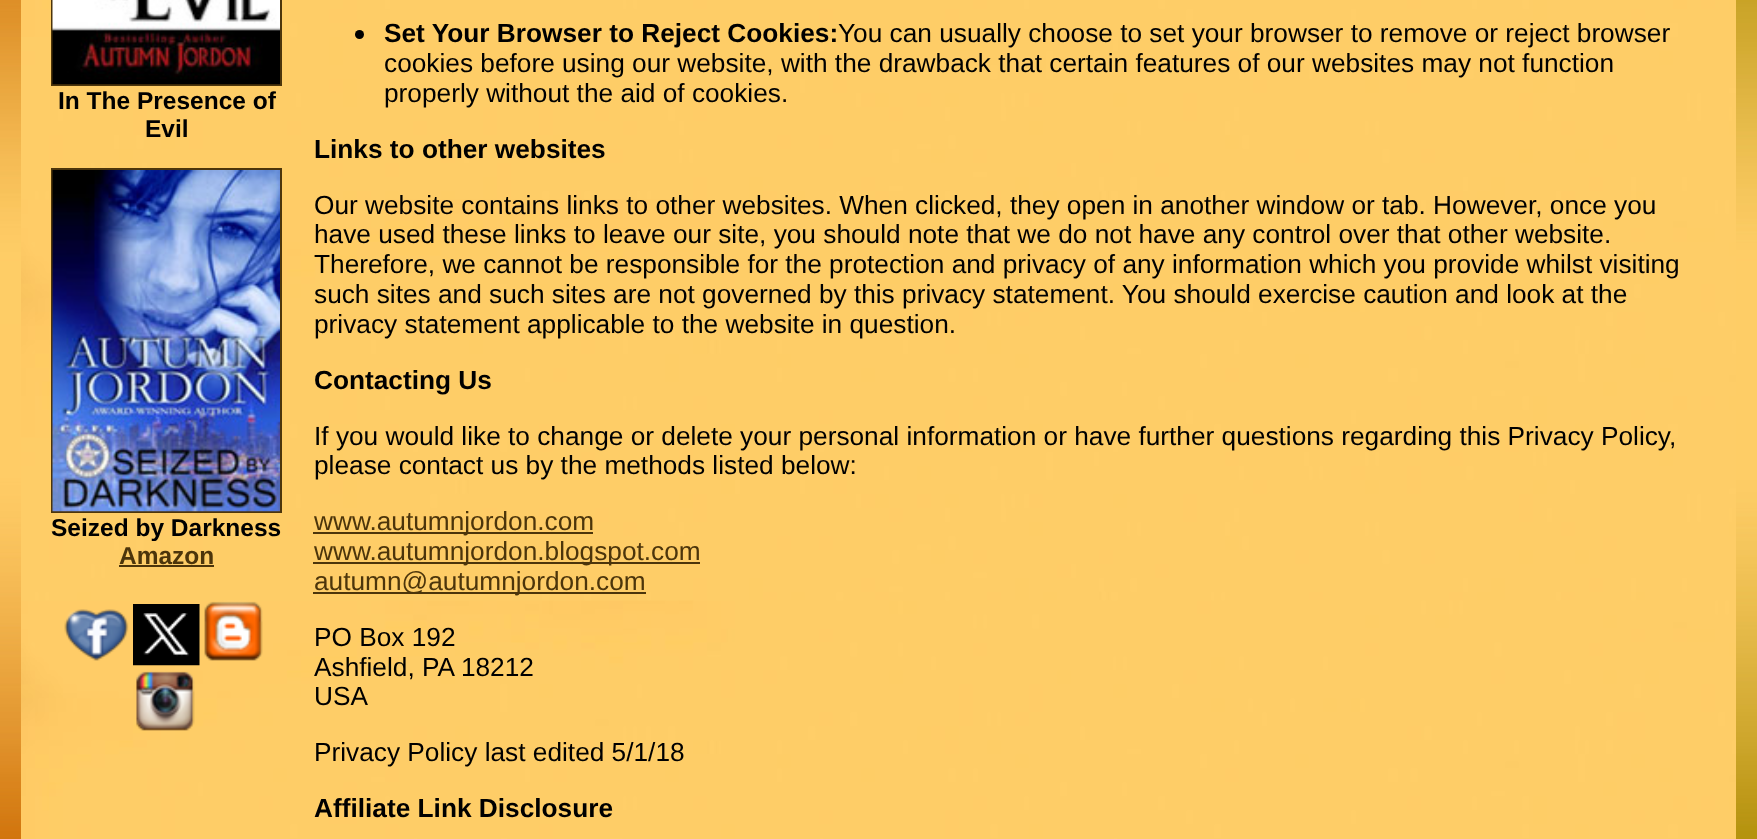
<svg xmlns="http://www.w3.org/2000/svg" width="1757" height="839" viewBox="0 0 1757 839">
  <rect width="100%" height="100%" fill="rgb(255,255,255)"/>
  <image x="0" y="0" width="1757" height="839" href="pic1.png"/>
  <image x="21" y="0" width="1715" height="839" href="pic2.png"/>
  <rect x="52" y="-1" width="229" height="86" fill="none" stroke="rgb(76,53,11)" stroke-width="2"/>
  <image x="52" y="0" width="228" height="85" href="pic3.png"/>
  <g font-family="Liberation Sans" font-size="24.5" font-weight="bold" fill="rgb(0,0,0)">
    <text x="58" y="109">In The Presence of</text>
    <text x="145" y="137">Evil</text>
  </g>
  <rect x="52" y="169" width="229" height="343" fill="none" stroke="rgb(76,53,11)" stroke-width="2"/>
  <image x="52" y="170" width="228" height="342" href="pic4.png"/>
  <text x="51" y="536" font-family="Liberation Sans" font-size="24.5" font-weight="bold" fill="rgb(0,0,0)">Seized by Darkness</text>
  <text x="119" y="564" font-family="Liberation Sans" font-size="24.5" font-weight="bold" fill="rgb(76,53,11)">Amazon</text>
  <rect x="119" y="565" width="95" height="2" fill="rgb(76,53,11)"/>
  <image x="64" y="609" width="65" height="52" href="pic5.png"/>
  <image x="133" y="604" width="67" height="62" href="pic6.png"/>
  <image x="204" y="600" width="59" height="61" href="pic7.png"/>
  <image x="136" y="670" width="59" height="61" href="pic8.png"/>
  <circle cx="359.5" cy="34.5" r="4.5" fill="rgb(0,0,0)"/>
  <text x="384" y="42" font-family="Liberation Sans" font-size="26.25" font-weight="bold" fill="rgb(0,0,0)">Set Your Browser to Reject Cookies:</text>
  <g font-family="Liberation Sans" font-size="26.25" fill="rgb(0,0,0)">
    <text x="838" y="42">You can usually choose to set your browser to remove or reject browser</text>
    <text>
      <tspan x="384" y="72">cookies before using our website, with the drawback that certain features of our websites may not function</tspan>
      <tspan x="384" y="102">properly without the aid of cookies.</tspan>
    </text>
  </g>
  <text x="314" y="158" font-family="Liberation Sans" font-size="26.25" font-weight="bold" fill="rgb(0,0,0)">Links to other websites</text>
  <g font-family="Liberation Sans" font-size="26.25" fill="rgb(0,0,0)">
    <text>
      <tspan x="314" y="214">Our website contains links to other websites. When clicked, they open in another window or tab. However, once you</tspan>
      <tspan x="314" y="243">have used these links to leave our site, you should note that we do not have any control over that other website.</tspan>
      <tspan x="314" y="273">Therefore, we cannot be responsible for the protection and privacy of any information which you provide whilst visiting</tspan>
      <tspan x="314" y="303">such sites and such sites are not governed by this privacy statement. You should exercise caution and look at the</tspan>
      <tspan x="314" y="333">privacy statement applicable to the website in question.</tspan>
    </text>
  </g>
  <text x="314" y="389" font-family="Liberation Sans" font-size="26.25" font-weight="bold" fill="rgb(0,0,0)">Contacting Us</text>
  <g font-family="Liberation Sans" font-size="26.25" fill="rgb(0,0,0)">
    <text>
      <tspan x="314" y="445">If you would like to change or delete your personal information or have further questions regarding this Privacy Policy,</tspan>
      <tspan x="314" y="474">please contact us by the methods listed below:</tspan>
    </text>
  </g>
  <rect x="313" y="532" width="280" height="2" fill="rgb(76,53,11)"/>
  <text x="314" y="530" font-family="Liberation Sans" font-size="26.25" fill="rgb(76,53,11)">www.autumnjordon.com</text>
  <rect x="313" y="562" width="387" height="2" fill="rgb(76,53,11)"/>
  <text x="314" y="560" font-family="Liberation Sans" font-size="26.25" fill="rgb(76,53,11)">www.autumnjordon.blogspot.com</text>
  <rect x="313" y="592" width="333" height="2" fill="rgb(76,53,11)"/>
  <text x="314" y="590" font-family="Liberation Sans" font-size="26.25" fill="rgb(76,53,11)">autumn@autumnjordon.com</text>
  <g font-family="Liberation Sans" font-size="26.25" fill="rgb(0,0,0)">
    <text>
      <tspan x="314" y="646">PO Box 192</tspan>
      <tspan x="314" y="676">Ashfield, PA 18212</tspan>
      <tspan x="314" y="705">USA</tspan>
    </text>
    <text x="314" y="761">Privacy Policy last edited 5/1/18</text>
  </g>
  <text x="314" y="817" font-family="Liberation Sans" font-size="26.25" font-weight="bold" fill="rgb(0,0,0)">Affiliate Link Disclosure</text>
</svg>
